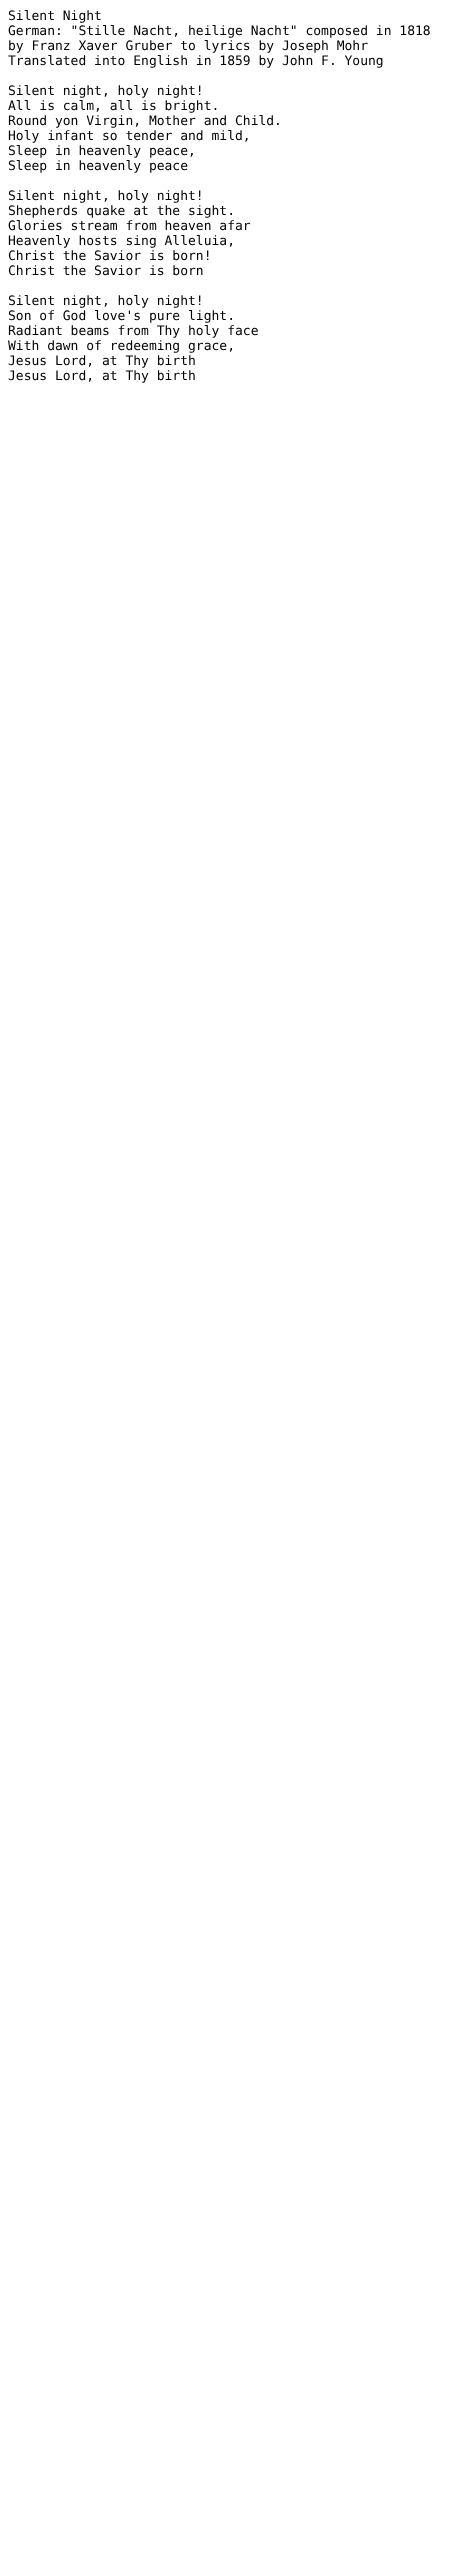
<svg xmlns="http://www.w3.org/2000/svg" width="450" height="2576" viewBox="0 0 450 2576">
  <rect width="100%" height="100%" fill="rgb(255,255,255)"/>
  <g font-family="DejaVu Sans Mono" font-size="13" fill="rgb(0,0,0)">
    <text>
      <tspan x="8" y="20">Silent Night</tspan>
      <tspan x="8" y="35">German: "Stille Nacht, heilige Nacht" composed in 1818</tspan>
      <tspan x="8" y="50">by Franz Xaver Gruber to lyrics by Joseph Mohr</tspan>
      <tspan x="8" y="65">Translated into English in 1859 by John F. Young</tspan>
    </text>
    <text>
      <tspan x="8" y="95">Silent night, holy night!</tspan>
      <tspan x="8" y="110">All is calm, all is bright.</tspan>
      <tspan x="8" y="125">Round yon Virgin, Mother and Child.</tspan>
      <tspan x="8" y="140">Holy infant so tender and mild,</tspan>
      <tspan x="8" y="155">Sleep in heavenly peace,</tspan>
      <tspan x="8" y="170">Sleep in heavenly peace</tspan>
    </text>
    <text>
      <tspan x="8" y="200">Silent night, holy night!</tspan>
      <tspan x="8" y="215">Shepherds quake at the sight.</tspan>
      <tspan x="8" y="230">Glories stream from heaven afar</tspan>
      <tspan x="8" y="245">Heavenly hosts sing Alleluia,</tspan>
      <tspan x="8" y="260">Christ the Savior is born!</tspan>
      <tspan x="8" y="275">Christ the Savior is born</tspan>
    </text>
    <text>
      <tspan x="8" y="305">Silent night, holy night!</tspan>
      <tspan x="8" y="320">Son of God love's pure light.</tspan>
      <tspan x="8" y="335">Radiant beams from Thy holy face</tspan>
      <tspan x="8" y="350">With dawn of redeeming grace,</tspan>
      <tspan x="8" y="365">Jesus Lord, at Thy birth</tspan>
      <tspan x="8" y="380">Jesus Lord, at Thy birth</tspan>
    </text>
  </g>
</svg>
